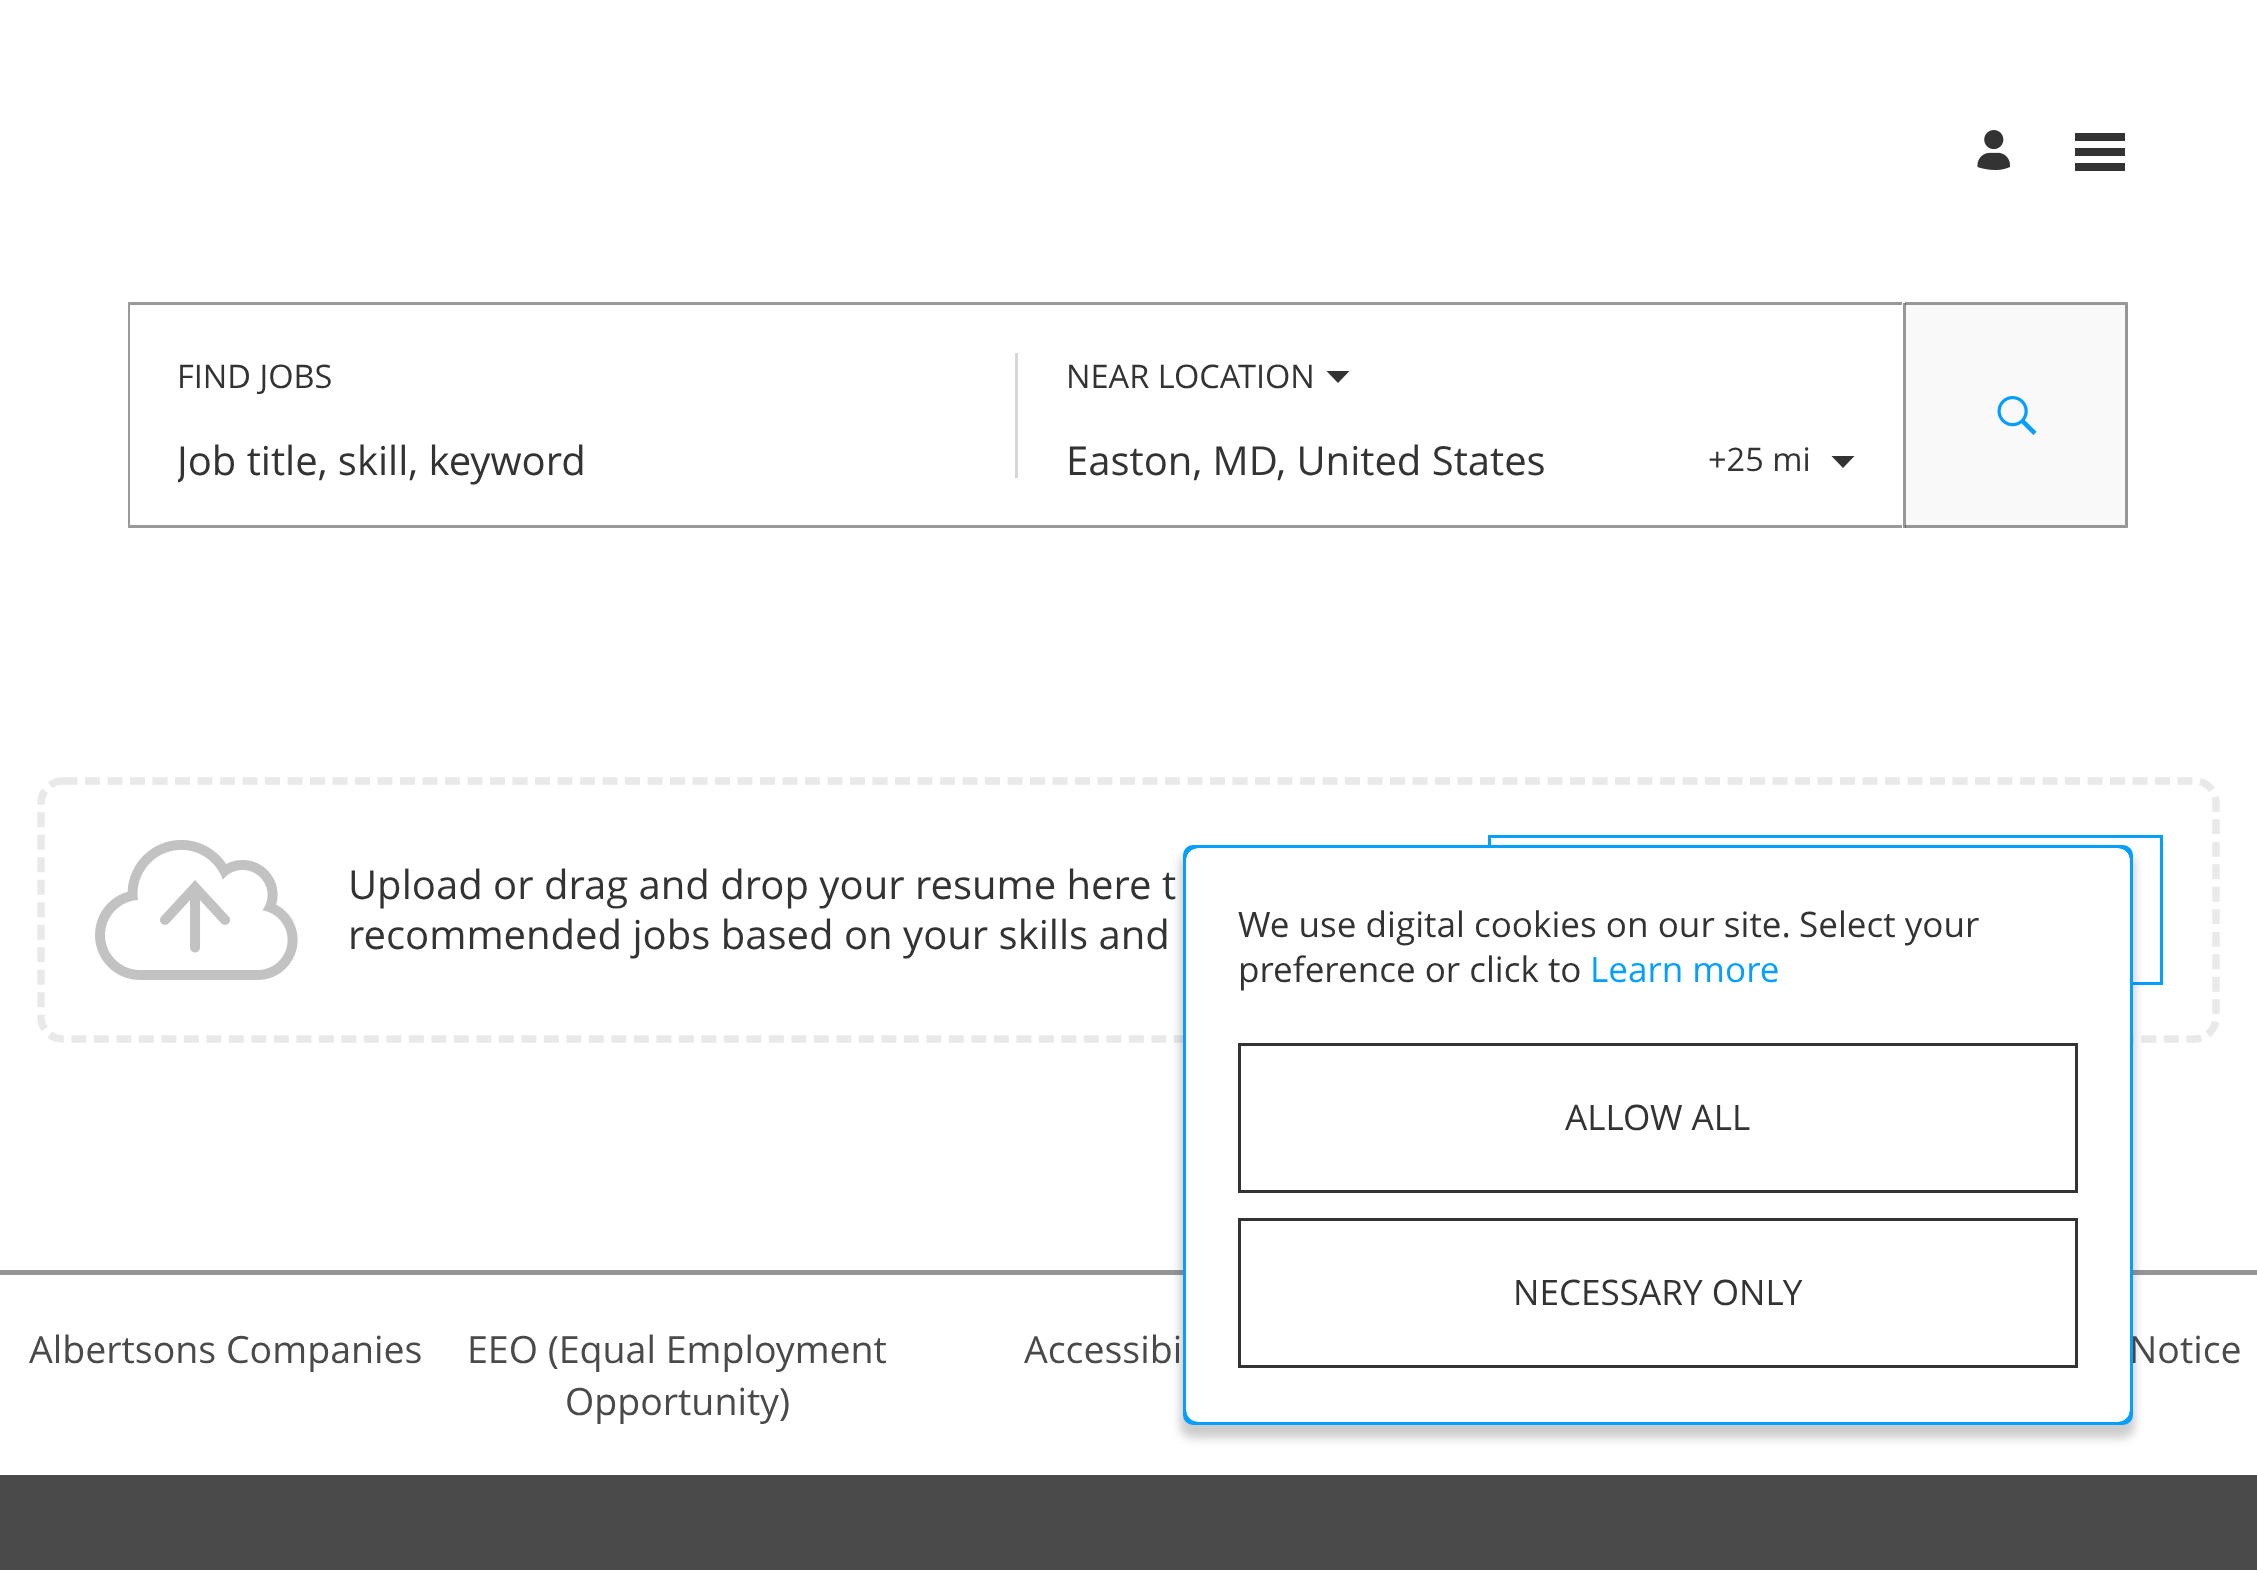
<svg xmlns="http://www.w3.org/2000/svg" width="2257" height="1570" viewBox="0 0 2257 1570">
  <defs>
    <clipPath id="clip1"><rect x="178" y="433" width="787" height="55"/></clipPath>
  </defs>
  <rect width="100%" height="100%" fill="rgb(255,255,255)"/>
  <image x="1977" y="130" width="33" height="40" href="pic1.png"/>
  <rect x="2075" y="133" width="50" height="8" fill="rgb(51,51,51)"/>
  <rect x="2075" y="148" width="50" height="8" fill="rgb(51,51,51)"/>
  <rect x="2075" y="163" width="50" height="8" fill="rgb(51,51,51)"/>
  <path d="M128 302H1902V305H130Z" fill="rgb(153,153,153)"/>
  <path d="M1902 528H128L130 525H1902Z" fill="rgb(153,153,153)"/>
  <path d="M128 528V302L130 305V525Z" fill="rgba(51,51,51,0.5)"/>
  <text x="177" y="388" font-family="Open Sans" font-size="32.5" fill="rgb(51,51,51)">FIND JOBS</text>
  <g clip-path="url(#clip1)">
    <text x="177" y="475" font-family="Open Sans" font-size="40" fill="rgb(51,51,51)">Job title, skill, keyword</text>
  </g>
  <rect x="1015" y="353" width="3" height="125" fill="rgb(214,214,214)"/>
  <text x="1066" y="388" font-family="Open Sans" font-size="32.5" fill="rgb(51,51,51)">NEAR LOCATION</text>
  <path d="M1338 383L1326.5 371H1349.5Z" fill="rgb(51,51,51)"/>
  <text x="1066" y="475" font-family="Open Sans" font-size="40" fill="rgb(51,51,51)">Easton, MD, United States</text>
  <text x="1708" y="471" font-family="Open Sans" font-size="32.5" fill="rgb(51,51,51)">+25 mi</text>
  <path d="M1843 468L1831.5 456H1854.5Z" fill="rgb(51,51,51)"/>
  <rect x="1903" y="303" width="3" height="225" fill="rgb(153,153,153)"/>
  <rect x="1905" y="303" width="223" height="225" fill="rgba(51,51,51,0.03)"/>
  <path d="M1905 302H2128L2125 305H1905Z" fill="rgba(51,51,51,0.5)"/>
  <path d="M2128 302V528L2125 525V305Z" fill="rgba(51,51,51,0.5)"/>
  <path d="M2128 528H1905V525H2125Z" fill="rgba(51,51,51,0.5)"/>
  <image x="1997" y="396" width="40" height="39" href="pic2.png"/>
  <path d="M62.5 781H2195C2206.5 781 2216 791 2216 802.5V1017.5C2216 1029 2206.5 1039 2195 1039H62.5C51 1039 41 1029 41 1017.5V802.5C41 791 51 781 62.5 781Z" fill="none" stroke="rgb(233,233,233)" stroke-width="7.5" stroke-dasharray="15 7.5"/>
  <image x="95" y="840" width="203" height="140" href="pic3.png"/>
  <g font-family="Open Sans" font-size="40" fill="rgb(51,51,51)">
    <text>
      <tspan x="348" y="899">Upload or drag and drop your resume here t</tspan>
      <tspan x="348" y="949">recommended jobs based on your skills and</tspan>
    </text>
  </g>
  <rect x="1489.5" y="836.5" width="672" height="147" fill="none" stroke="rgb(5,159,255)" stroke-width="3"/>
  <rect x="0" y="1270" width="2257" height="5" fill="rgb(149,149,149)"/>
  <g font-family="Open Sans" font-size="37.5" fill="rgb(75,74,75)">
    <text x="29" y="1363">Albertsons Companies</text>
    <text x="467" y="1363">EEO (Equal Employment</text>
    <text x="565" y="1415">Opportunity)</text>
    <text x="1024" y="1363">Accessibi</text>
    <text x="2129" y="1363">Notice</text>
  </g>
  <rect x="0" y="1475" width="2257" height="95" fill="rgb(75,74,75)"/>
  <rect x="1180" y="853" width="955" height="585" rx="13" fill="rgba(51,51,51,0.25)" filter="blur(5px)"/>
  <rect x="1184.5" y="846.5" width="947" height="577" rx="8.5" fill="rgb(255,255,255)" stroke="rgb(5,159,255)" stroke-width="3"/>
  <rect x="1184.5" y="846.5" width="947" height="577" rx="13.5" fill="none" stroke="rgb(5,159,255)" stroke-width="3"/>
  <rect x="1184.5" y="846.5" width="947" height="577" rx="13.5" fill="none" stroke="rgb(5,159,255)" stroke-width="3"/>
  <rect x="1184.5" y="846.5" width="947" height="577" rx="13.5" fill="none" stroke="rgb(5,159,255)" stroke-width="3"/>
  <g font-family="Open Sans" font-size="35.1" fill="rgb(51,51,51)">
    <text x="1238" y="937">We use digital cookies on our site.</text>
    <text x="1799" y="937">Select your</text>
    <text x="1238" y="982">preference or click to</text>
  </g>
  <text x="1590" y="982" font-family="Open Sans" font-size="35.1" fill="rgb(5,159,255)">Learn more</text>
  <rect x="1239.5" y="1044.5" width="837" height="147" fill="none" stroke="rgb(51,51,51)" stroke-width="3"/>
  <text x="1565" y="1130" font-family="Open Sans" font-size="35.1" fill="rgb(51,51,51)">ALLOW ALL</text>
  <rect x="1239.5" y="1219.5" width="837" height="147" fill="none" stroke="rgb(51,51,51)" stroke-width="3"/>
  <text x="1513" y="1305" font-family="Open Sans" font-size="35.1" fill="rgb(51,51,51)">NECESSARY ONLY</text>
</svg>
